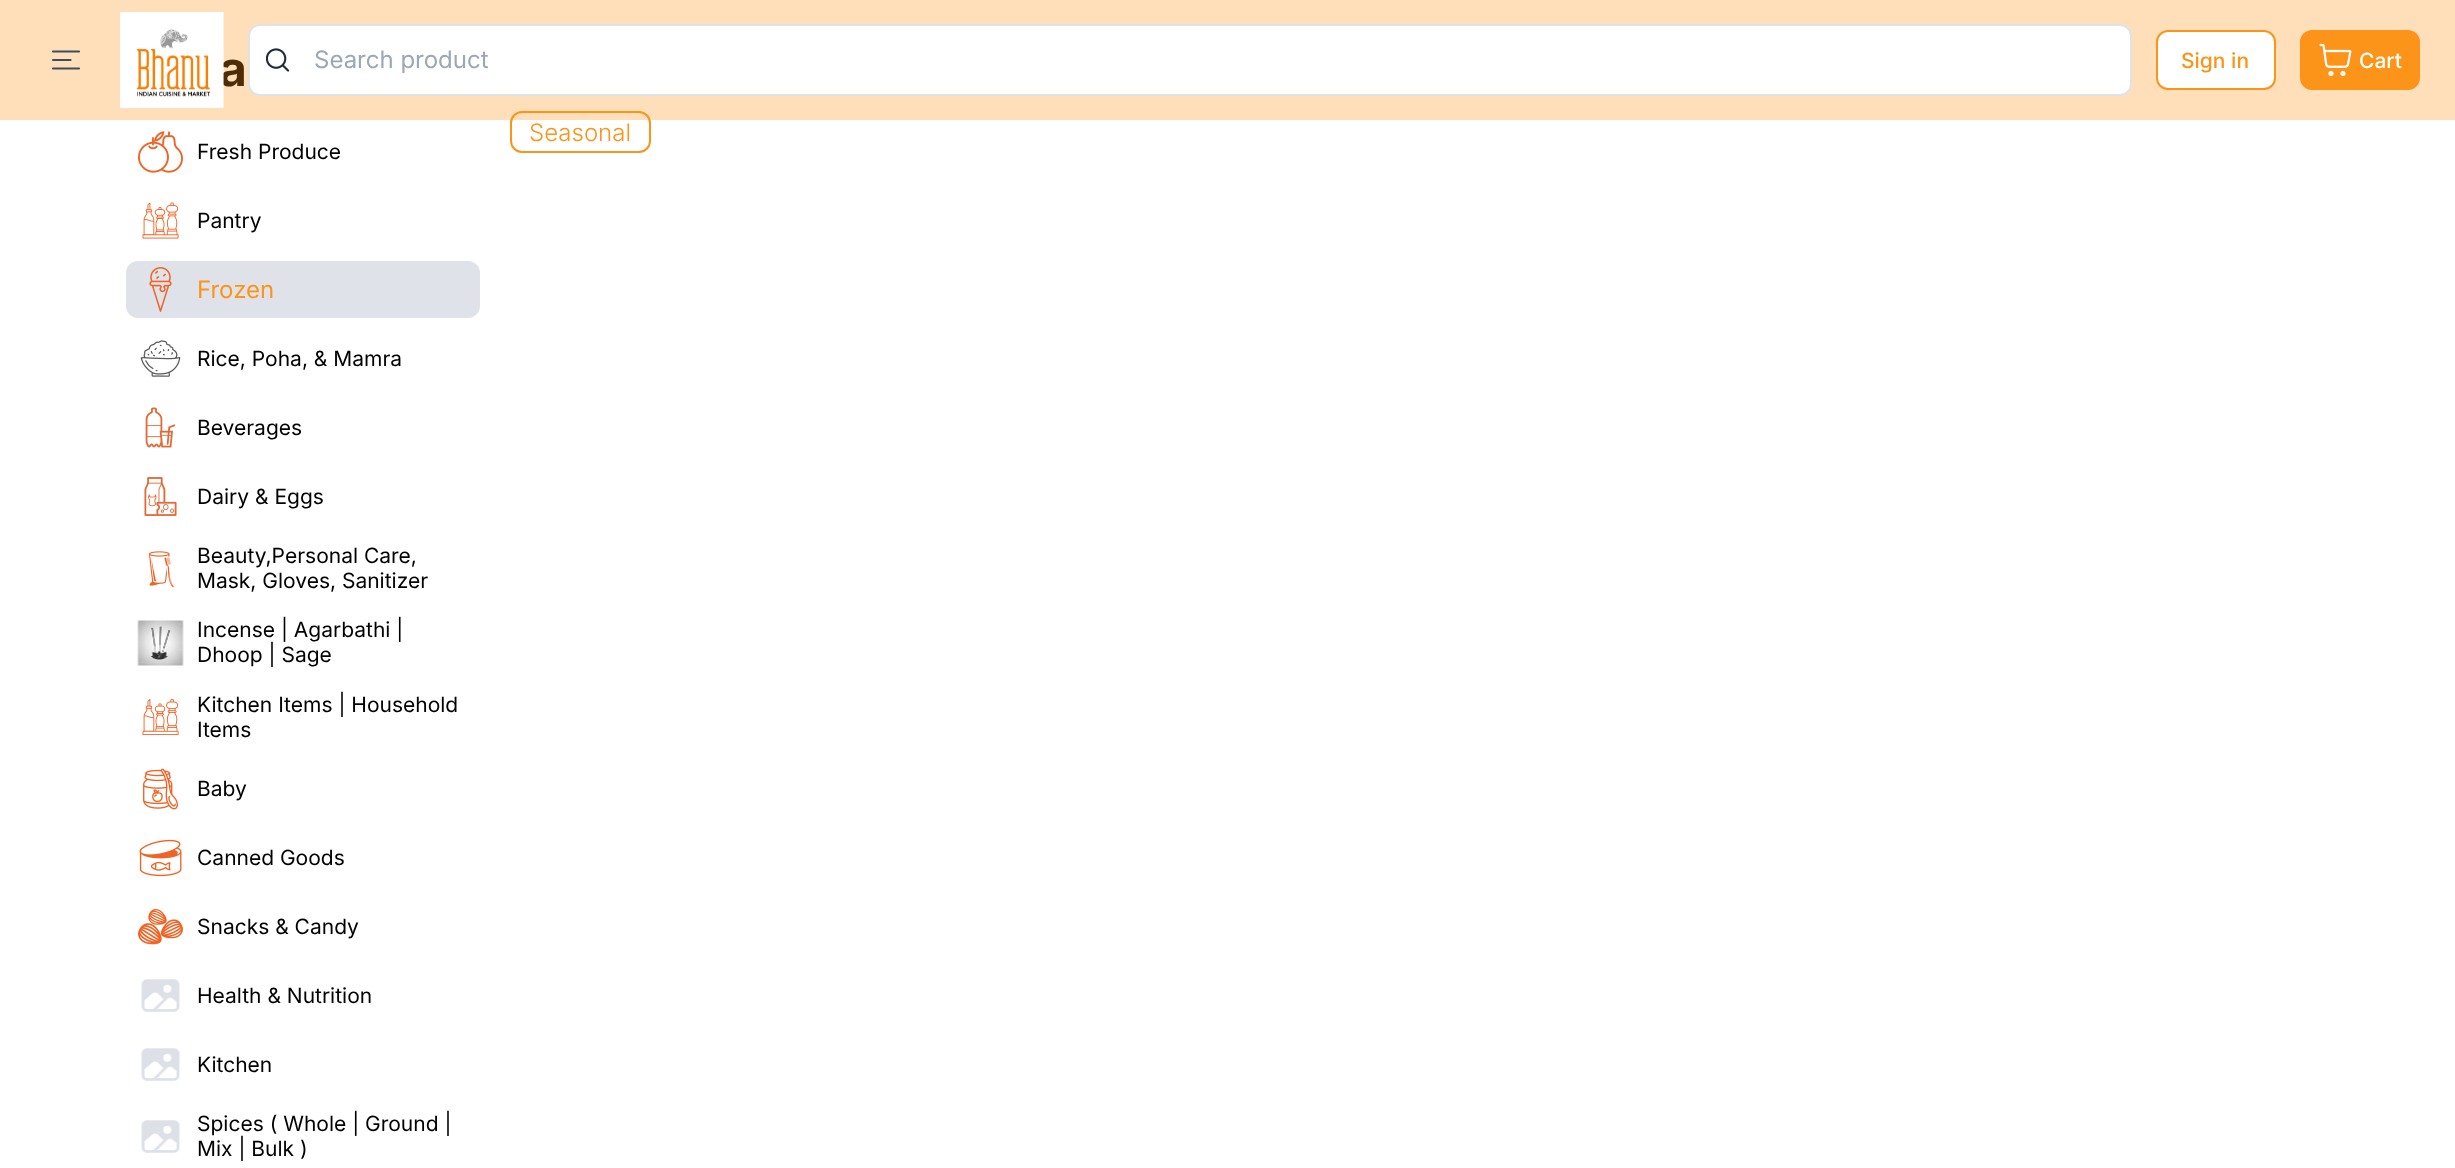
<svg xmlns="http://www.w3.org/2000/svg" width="2455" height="1168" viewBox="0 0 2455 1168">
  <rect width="100%" height="100%" fill="rgb(255,255,255)"/>
  <text x="219" y="86" font-family="Inter" font-size="48" font-weight="bold" fill="rgb(0,0,0)">a</text>
  <rect x="511" y="112" width="139" height="40" rx="11" fill="none" stroke="rgb(252,148,25)" stroke-width="2"/>
  <rect x="0" y="0" width="2455" height="120" fill="rgba(252,148,25,0.3)"/>
  <path d="M53 60H70.5M53 51.5H79M53 68.5H79" fill="none" stroke="rgb(60,77,95)" stroke-width="2.2" stroke-linecap="round" stroke-linejoin="round"/>
  <image x="120" y="12" width="104" height="96" href="pic1.png"/>
  <rect x="249" y="25" width="1882" height="70" rx="11" fill="rgb(255,255,255)" stroke="rgb(223,227,233)" stroke-width="2"/>
  <image x="266" y="48" width="24" height="24" href="pic2.png"/>
  <text x="314" y="68" font-family="Inter" font-size="24" fill="rgb(156,167,181)">Search product</text>
  <rect x="2157" y="31" width="118" height="58" rx="11" fill="rgb(255,255,255)" stroke="rgb(252,148,25)" stroke-width="2"/>
  <text x="2181" y="68" font-family="Inter" font-size="21" font-weight="500" fill="rgb(252,148,25)">Sign in</text>
  <rect x="2301" y="31" width="118" height="58" rx="11" fill="rgb(252,148,25)" stroke="rgb(252,148,25)" stroke-width="2"/>
  <image x="2319" y="43" width="33" height="34" href="pic3.png"/>
  <text x="2359" y="68" font-family="Inter" font-size="21" font-weight="500" fill="rgb(255,255,255)">Cart</text>
  <image x="138" y="131" width="45" height="42" href="pic4.png"/>
  <text x="197" y="159" font-family="Inter" font-size="21" fill="rgb(0,0,0)">Fresh Produce</text>
  <image x="142" y="202" width="37" height="37" href="pic5.png"/>
  <text x="197" y="228" font-family="Inter" font-size="21" fill="rgb(0,0,0)">Pantry</text>
  <rect x="126" y="261" width="354" height="57" rx="12" fill="rgb(223,227,233)"/>
  <image x="149" y="267" width="23" height="45" href="pic6.png"/>
  <text x="197" y="298" font-family="Inter" font-size="24" fill="rgb(252,148,25)">Frozen</text>
  <image x="140" y="340" width="41" height="37" href="pic7.png"/>
  <text x="197" y="366" font-family="Inter" font-size="21" fill="rgb(0,0,0)">Rice, Poha, &amp; Mamra</text>
  <image x="145" y="407" width="31" height="41" href="pic8.png"/>
  <text x="197" y="435" font-family="Inter" font-size="21" fill="rgb(0,0,0)">Beverages</text>
  <image x="144" y="477" width="33" height="39" href="pic9.png"/>
  <text x="197" y="504" font-family="Inter" font-size="21" fill="rgb(0,0,0)">Dairy &amp; Eggs</text>
  <image x="149" y="551" width="25" height="37" href="pic10.png"/>
  <g font-family="Inter" font-size="21" fill="rgb(0,0,0)">
    <text>
      <tspan x="197" y="563">Beauty,Personal Care,</tspan>
      <tspan x="197" y="588">Mask, Gloves, Sanitizer</tspan>
    </text>
  </g>
  <image x="137" y="620" width="47" height="46" href="pic11.png"/>
  <g font-family="Inter" font-size="21" fill="rgb(0,0,0)">
    <text>
      <tspan x="197" y="637">Incense | Agarbathi |</tspan>
      <tspan x="197" y="662">Dhoop | Sage</tspan>
    </text>
  </g>
  <image x="142" y="699" width="37" height="36" href="pic12.png"/>
  <g font-family="Inter" font-size="21" fill="rgb(0,0,0)">
    <text>
      <tspan x="197" y="712">Kitchen Items | Household</tspan>
      <tspan x="197" y="737">Items</tspan>
    </text>
  </g>
  <image x="143" y="768" width="35" height="42" href="pic13.png"/>
  <text x="197" y="796" font-family="Inter" font-size="21" fill="rgb(0,0,0)">Baby</text>
  <image x="139" y="839" width="43" height="38" href="pic14.png"/>
  <text x="197" y="865" font-family="Inter" font-size="21" fill="rgb(0,0,0)">Canned Goods</text>
  <image x="138" y="909" width="45" height="36" href="pic15.png"/>
  <text x="197" y="934" font-family="Inter" font-size="21" fill="rgb(0,0,0)">Snacks &amp; Candy</text>
  <image x="141" y="979" width="39" height="33" href="pic16.png"/>
  <text x="197" y="1003" font-family="Inter" font-size="21" fill="rgb(0,0,0)">Health &amp; Nutrition</text>
  <image x="141" y="1048" width="39" height="33" href="pic16.png"/>
  <text x="197" y="1072" font-family="Inter" font-size="21" fill="rgb(0,0,0)">Kitchen</text>
  <image x="141" y="1120" width="39" height="33" href="pic16.png"/>
  <g font-family="Inter" font-size="21" fill="rgb(0,0,0)">
    <text>
      <tspan x="197" y="1131">Spices ( Whole | Ground |</tspan>
      <tspan x="197" y="1156">Mix | Bulk )</tspan>
    </text>
  </g>
  <text x="529" y="141" font-family="Inter" font-size="24" font-weight="300" fill="rgb(252,148,25)">Seasonal</text>
</svg>
